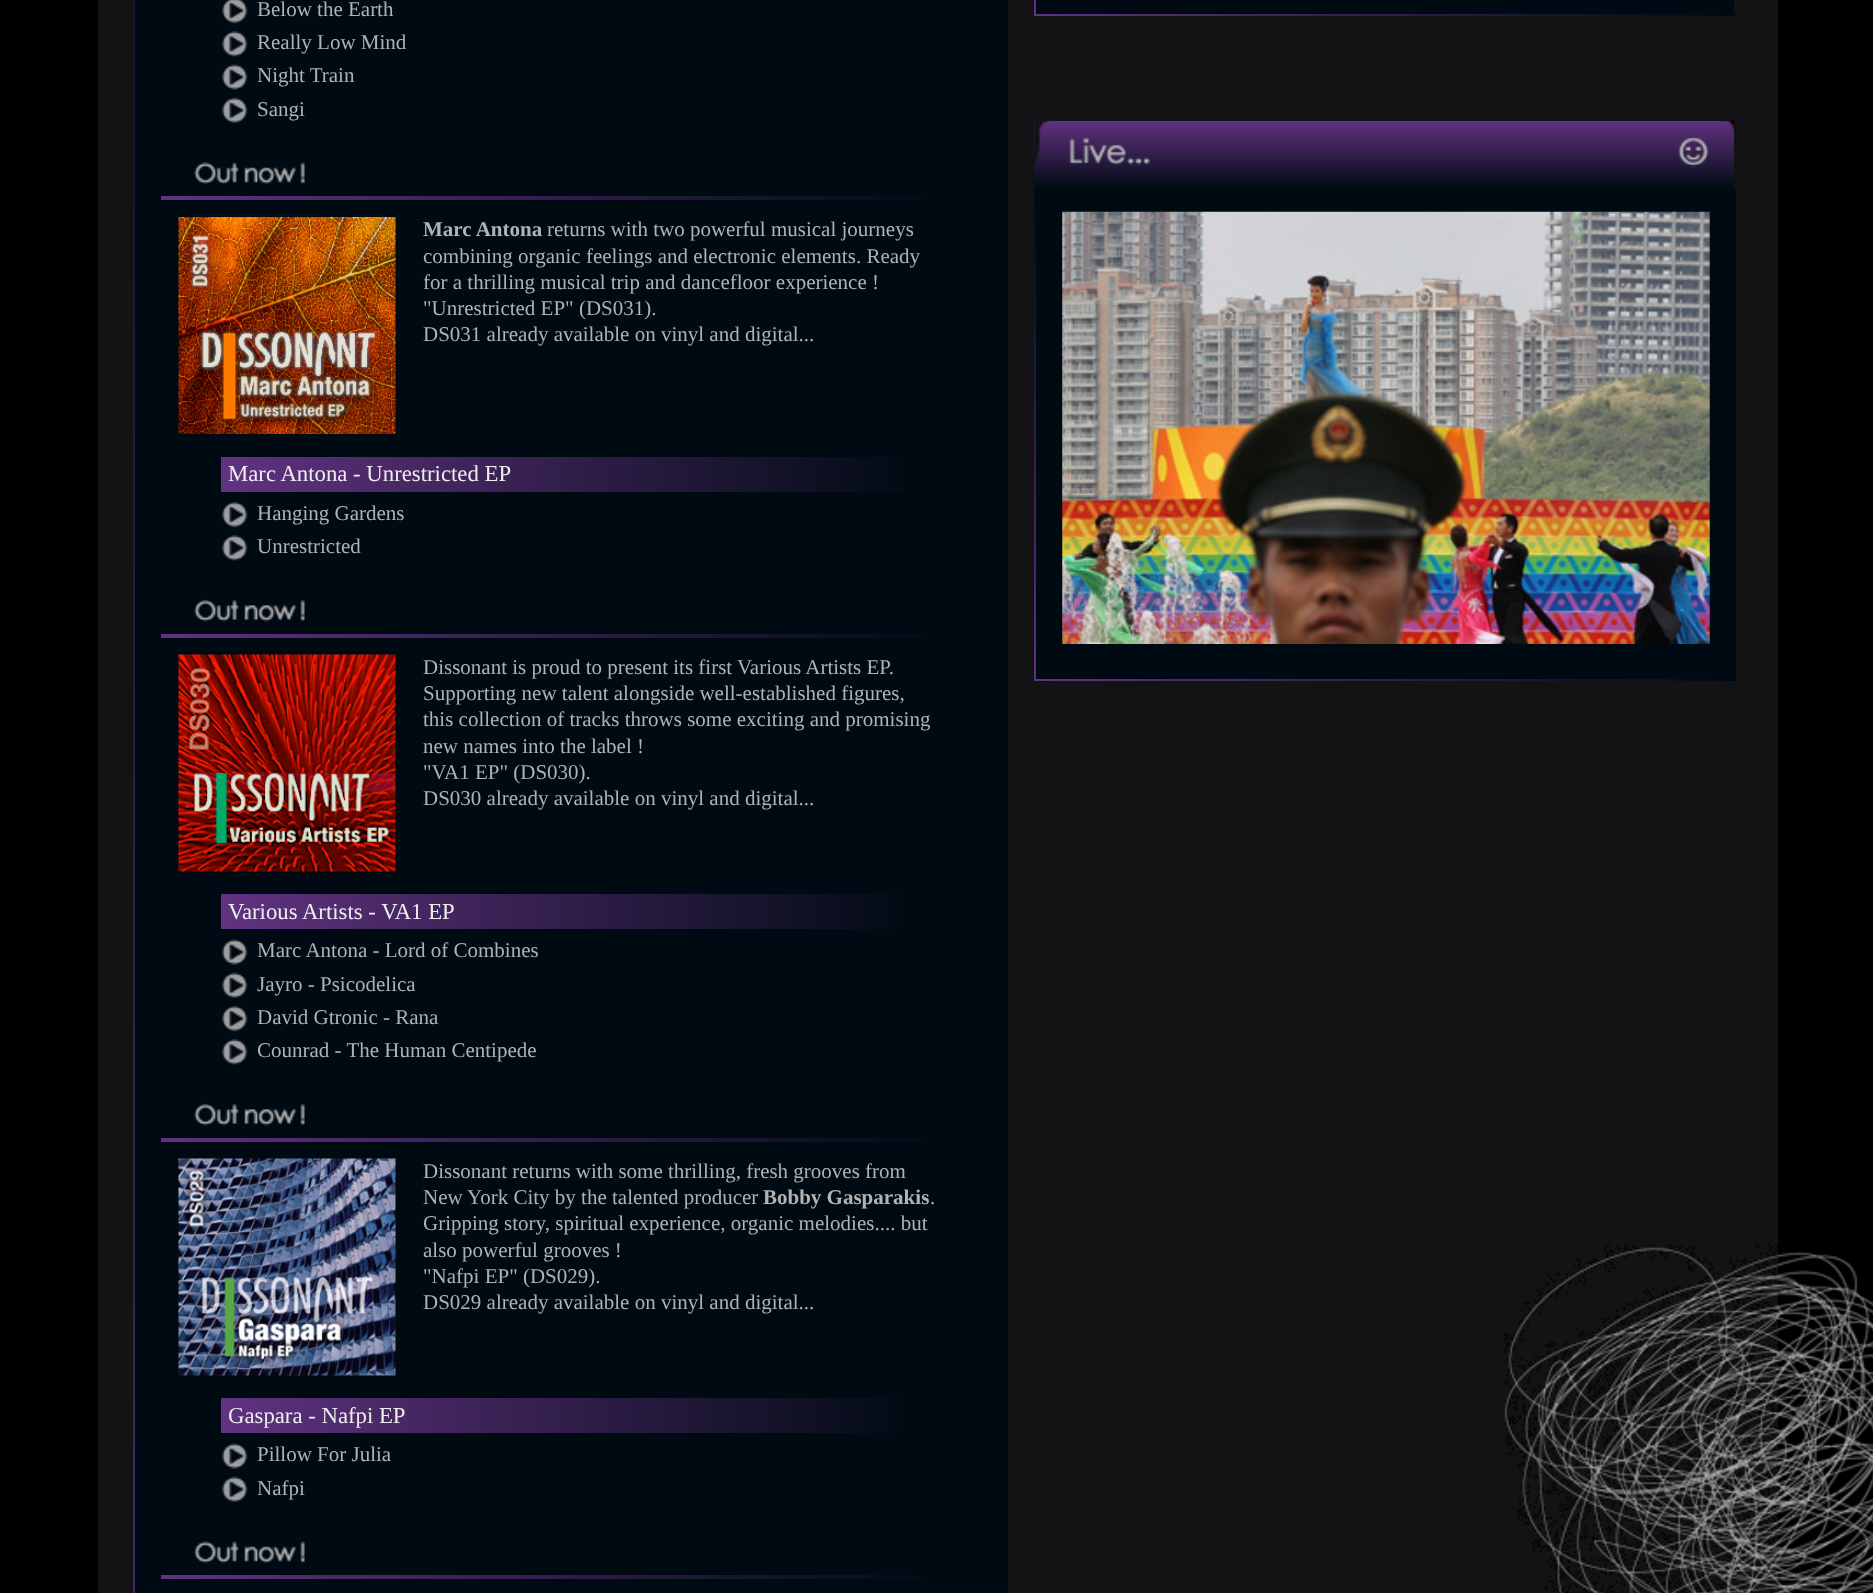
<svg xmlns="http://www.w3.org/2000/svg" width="1873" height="1593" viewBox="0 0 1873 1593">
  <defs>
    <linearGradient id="g1" gradientUnits="userSpaceOnUse" x1="133" y1="-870" x2="133" y2="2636"><stop offset="0" stop-color="rgb(0,10,18)"/><stop offset="1" stop-color="rgb(97,50,129)"/></linearGradient>
    <linearGradient id="g2" gradientUnits="userSpaceOnUse" x1="161" y1="196" x2="945" y2="196"><stop offset="0" stop-color="rgb(97,50,129)"/><stop offset="1" stop-color="rgb(0,10,18)"/></linearGradient>
    <linearGradient id="g3" gradientUnits="userSpaceOnUse" x1="221" y1="457" x2="921" y2="457"><stop offset="0" stop-color="rgb(97,50,129)"/><stop offset="1" stop-color="rgb(0,10,18)"/></linearGradient>
    <linearGradient id="g4" gradientUnits="userSpaceOnUse" x1="161" y1="634" x2="945" y2="634"><stop offset="0" stop-color="rgb(97,50,129)"/><stop offset="1" stop-color="rgb(0,10,18)"/></linearGradient>
    <linearGradient id="g5" gradientUnits="userSpaceOnUse" x1="221" y1="894" x2="921" y2="894"><stop offset="0" stop-color="rgb(97,50,129)"/><stop offset="1" stop-color="rgb(0,10,18)"/></linearGradient>
    <linearGradient id="g6" gradientUnits="userSpaceOnUse" x1="161" y1="1138" x2="945" y2="1138"><stop offset="0" stop-color="rgb(97,50,129)"/><stop offset="1" stop-color="rgb(0,10,18)"/></linearGradient>
    <linearGradient id="g7" gradientUnits="userSpaceOnUse" x1="221" y1="1398" x2="921" y2="1398"><stop offset="0" stop-color="rgb(97,50,129)"/><stop offset="1" stop-color="rgb(0,10,18)"/></linearGradient>
    <linearGradient id="g8" gradientUnits="userSpaceOnUse" x1="161" y1="1575" x2="945" y2="1575"><stop offset="0" stop-color="rgb(97,50,129)"/><stop offset="1" stop-color="rgb(0,10,18)"/></linearGradient>
    <linearGradient id="g9" gradientUnits="userSpaceOnUse" x1="1034" y1="-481" x2="1034" y2="14"><stop offset="0" stop-color="rgb(0,10,18)"/><stop offset="1" stop-color="rgb(97,50,129)"/></linearGradient>
    <linearGradient id="g10" gradientUnits="userSpaceOnUse" x1="1034" y1="14" x2="1736" y2="14"><stop offset="0" stop-color="rgb(97,50,129)"/><stop offset="1" stop-color="rgb(0,10,18)"/></linearGradient>
    <linearGradient id="g11" gradientUnits="userSpaceOnUse" x1="1034" y1="121" x2="1034" y2="189"><stop offset="0" stop-color="rgb(97,50,129)"/><stop offset="1" stop-color="rgb(0,10,18)"/></linearGradient>
    <linearGradient id="g12" gradientUnits="userSpaceOnUse" x1="1034" y1="194" x2="1034" y2="679"><stop offset="0" stop-color="rgb(0,10,18)"/><stop offset="1" stop-color="rgb(97,50,129)"/></linearGradient>
    <linearGradient id="g13" gradientUnits="userSpaceOnUse" x1="1034" y1="679" x2="1736" y2="679"><stop offset="0" stop-color="rgb(97,50,129)"/><stop offset="1" stop-color="rgb(0,10,18)"/></linearGradient>
  </defs>
  <rect width="100%" height="100%" fill="rgb(0,0,0)"/>
  <rect x="98" y="0" width="1680" height="1593" fill="rgb(19,18,20)"/>
  <rect x="133" y="0" width="2" height="1593" fill="url(#g1)"/>
  <rect x="135" y="0" width="873" height="1593" fill="rgb(0,10,18)"/>
  <image x="221" y="0" width="27" height="24" href="pic1.png"/>
  <text x="257" y="16" font-family="Liberation Serif" font-size="21" fill="rgb(178,178,178)">Below the Earth</text>
  <image x="221" y="31" width="27" height="26" href="pic2.png"/>
  <text x="257" y="49" font-family="Liberation Serif" font-size="21" fill="rgb(178,178,178)">Really Low Mind</text>
  <image x="221" y="64" width="27" height="26" href="pic3.png"/>
  <text x="257" y="82" font-family="Liberation Serif" font-size="21" fill="rgb(178,178,178)">Night Train</text>
  <image x="221" y="97" width="27" height="26" href="pic4.png"/>
  <text x="257" y="116" font-family="Liberation Serif" font-size="21" fill="rgb(178,178,178)">Sangi</text>
  <image x="194" y="162" width="111" height="23" href="pic5.png"/>
  <rect x="161" y="196" width="766" height="4" fill="url(#g2)"/>
  <image x="178" y="217" width="218" height="217" href="pic6.png"/>
  <text x="423" y="236" font-family="Liberation Serif" font-size="21" font-weight="bold" fill="rgb(178,178,178)">Marc Antona</text>
  <g font-family="Liberation Serif" font-size="21" fill="rgb(178,178,178)">
    <text x="547" y="236">returns with two powerful musical journeys</text>
    <text>
      <tspan x="423" y="263">combining organic feelings and electronic elements. Ready</tspan>
      <tspan x="423" y="289">for a thrilling musical trip and dancefloor experience !</tspan>
      <tspan x="423" y="315">"Unrestricted EP" (DS031).</tspan>
      <tspan x="423" y="341">DS031 already available on vinyl and digital...</tspan>
    </text>
  </g>
  <rect x="221" y="457" width="684" height="35" fill="url(#g3)"/>
  <text x="228" y="481" font-family="Liberation Serif" font-size="22.75" fill="rgb(238,238,238)">Marc Antona - Unrestricted EP</text>
  <image x="221" y="501" width="27" height="27" href="pic7.png"/>
  <text x="257" y="520" font-family="Liberation Serif" font-size="21" fill="rgb(178,178,178)">Hanging Gardens</text>
  <image x="221" y="535" width="27" height="26" href="pic2.png"/>
  <text x="257" y="553" font-family="Liberation Serif" font-size="21" fill="rgb(178,178,178)">Unrestricted</text>
  <image x="194" y="599" width="111" height="23" href="pic8.png"/>
  <rect x="161" y="634" width="766" height="4" fill="url(#g4)"/>
  <image x="178" y="654" width="218" height="218" href="pic9.png"/>
  <g font-family="Liberation Serif" font-size="21" fill="rgb(178,178,178)">
    <text>
      <tspan x="423" y="674">Dissonant is proud to present its first Various Artists EP.</tspan>
      <tspan x="423" y="700">Supporting new talent alongside well-established figures,</tspan>
      <tspan x="423" y="726">this collection of tracks throws some exciting and promising</tspan>
      <tspan x="423" y="753">new names into the label !</tspan>
      <tspan x="423" y="779">"VA1 EP" (DS030).</tspan>
      <tspan x="423" y="805">DS030 already available on vinyl and digital...</tspan>
    </text>
  </g>
  <rect x="221" y="894" width="684" height="35" fill="url(#g5)"/>
  <text x="228" y="919" font-family="Liberation Serif" font-size="22.75" fill="rgb(238,238,238)">Various Artists - VA1 EP</text>
  <image x="221" y="939" width="27" height="26" href="pic3.png"/>
  <text x="257" y="957" font-family="Liberation Serif" font-size="21" fill="rgb(178,178,178)">Marc Antona - Lord of Combines</text>
  <image x="221" y="972" width="27" height="26" href="pic4.png"/>
  <text x="257" y="991" font-family="Liberation Serif" font-size="21" fill="rgb(178,178,178)">Jayro - Psicodelica</text>
  <image x="221" y="1005" width="27" height="27" href="pic7.png"/>
  <text x="257" y="1024" font-family="Liberation Serif" font-size="21" fill="rgb(178,178,178)">David Gtronic - Rana</text>
  <image x="221" y="1039" width="27" height="26" href="pic2.png"/>
  <text x="257" y="1057" font-family="Liberation Serif" font-size="21" fill="rgb(178,178,178)">Counrad - The Human Centipede</text>
  <image x="194" y="1103" width="111" height="23" href="pic8.png"/>
  <rect x="161" y="1138" width="766" height="4" fill="url(#g6)"/>
  <image x="178" y="1158" width="218" height="218" href="pic10.png"/>
  <g font-family="Liberation Serif" font-size="21" fill="rgb(178,178,178)">
    <text>
      <tspan x="423" y="1178">Dissonant returns with some thrilling, fresh grooves from</tspan>
      <tspan x="423" y="1204">New York City by the talented producer</tspan>
    </text>
  </g>
  <text x="763" y="1204" font-family="Liberation Serif" font-size="21" font-weight="bold" fill="rgb(178,178,178)">Bobby Gasparakis</text>
  <g font-family="Liberation Serif" font-size="21" fill="rgb(178,178,178)">
    <text x="930" y="1204">.</text>
    <text>
      <tspan x="423" y="1230">Gripping story, spiritual experience, organic melodies.... but</tspan>
      <tspan x="423" y="1257">also powerful grooves !</tspan>
      <tspan x="423" y="1283">"Nafpi EP" (DS029).</tspan>
      <tspan x="423" y="1309">DS029 already available on vinyl and digital...</tspan>
    </text>
  </g>
  <rect x="221" y="1398" width="684" height="35" fill="url(#g7)"/>
  <text x="228" y="1423" font-family="Liberation Serif" font-size="22.75" fill="rgb(238,238,238)">Gaspara - Nafpi EP</text>
  <image x="221" y="1443" width="27" height="26" href="pic3.png"/>
  <text x="257" y="1461" font-family="Liberation Serif" font-size="21" fill="rgb(178,178,178)">Pillow For Julia</text>
  <image x="221" y="1476" width="27" height="26" href="pic4.png"/>
  <text x="257" y="1495" font-family="Liberation Serif" font-size="21" fill="rgb(178,178,178)">Nafpi</text>
  <image x="194" y="1541" width="111" height="23" href="pic5.png"/>
  <rect x="161" y="1575" width="766" height="4" fill="url(#g8)"/>
  <rect x="1034" y="0" width="2" height="14" fill="url(#g9)"/>
  <rect x="1036" y="0" width="698" height="14" fill="rgb(0,10,18)"/>
  <rect x="1034" y="14" width="702" height="2" fill="url(#g10)"/>
  <rect x="1034" y="121" width="700" height="68" fill="url(#g11)"/>
  <image x="1034" y="121" width="16" height="52" href="pic11.png"/>
  <image x="1069" y="137" width="82" height="28" href="pic12.png"/>
  <image x="1678" y="137" width="31" height="30" href="pic13.png"/>
  <image x="1724" y="120" width="11" height="12" href="pic14.png"/>
  <rect x="1034" y="189" width="702" height="5" fill="rgb(0,10,18)"/>
  <rect x="1034" y="194" width="2" height="485" fill="url(#g12)"/>
  <rect x="1036" y="194" width="700" height="485" fill="rgb(0,10,18)"/>
  <image x="1062" y="211" width="648" height="433" href="pic15.png"/>
  <rect x="1034" y="679" width="702" height="2" fill="url(#g13)"/>
  <image x="1503" y="1244" width="370" height="349" href="pic16.png"/>
</svg>
